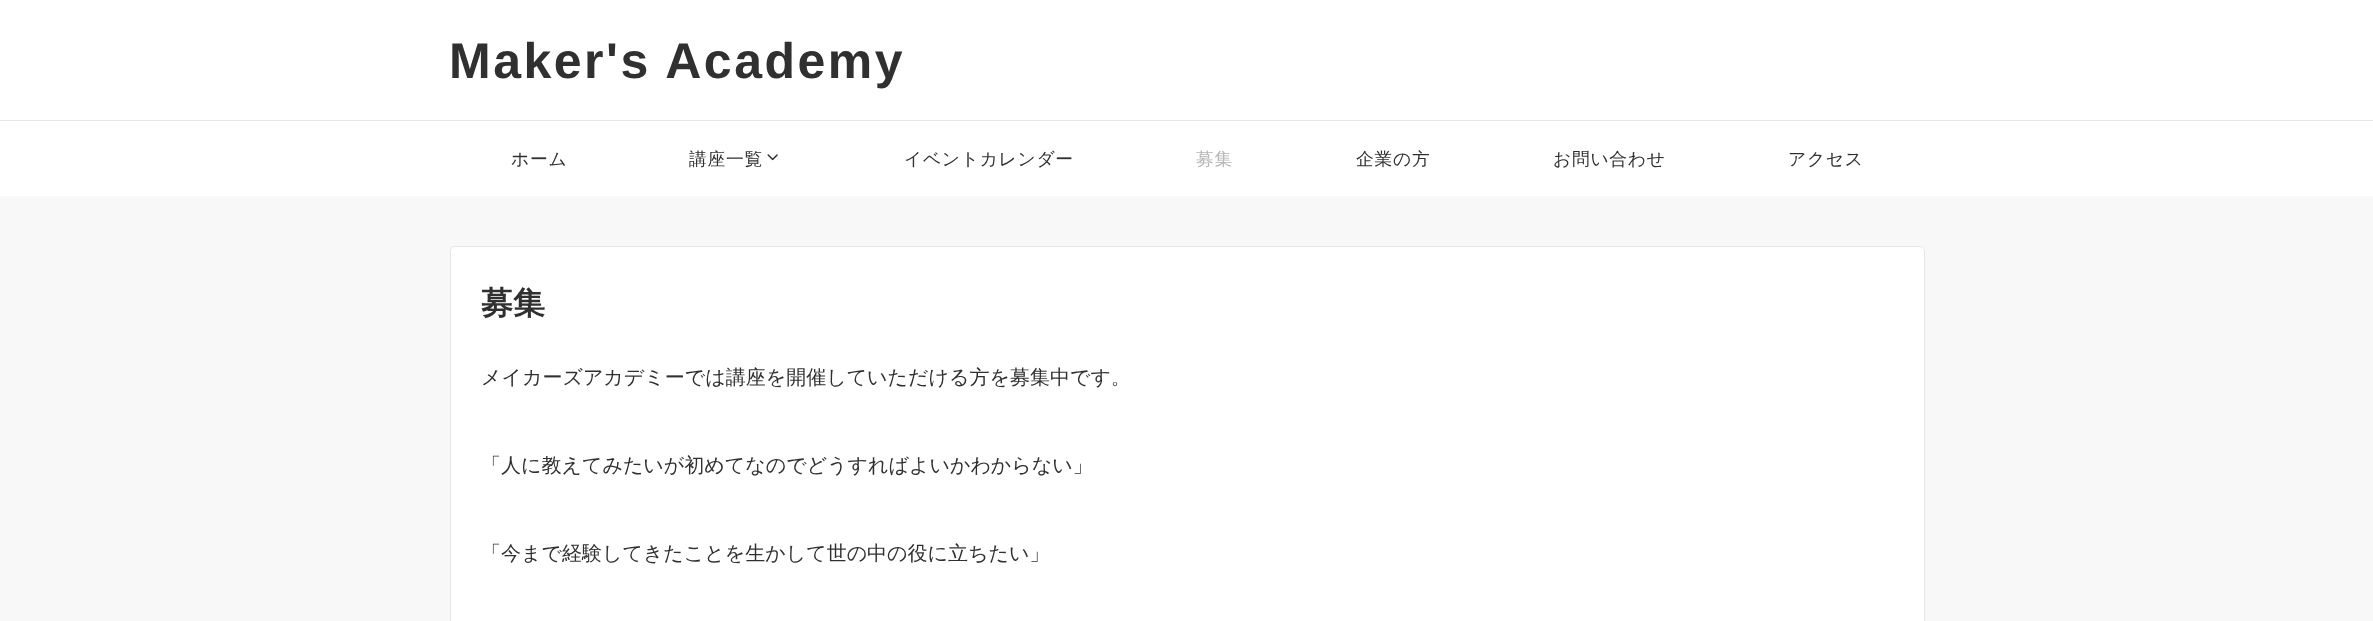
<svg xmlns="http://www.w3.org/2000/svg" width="2373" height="621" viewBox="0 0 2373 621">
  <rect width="100%" height="100%" fill="rgb(248,248,248)"/>
  <rect x="0" y="0" width="2373" height="120" fill="rgb(255,255,255)"/>
  <rect x="0" y="120" width="2373" height="1" fill="rgb(230,230,230)"/>
  <text x="449" y="78" font-family="Liberation Sans" font-size="50" font-weight="bold" letter-spacing="2.5" fill="rgb(48,48,48)">Maker's Academy</text>
  <rect x="0" y="121" width="2373" height="75" fill="rgb(255,255,255)"/>
  <g font-family="WenQuanYi Zen Hei" font-size="17.75" font-weight="500" letter-spacing="0.75" fill="rgb(48,48,48)">
    <text x="511" y="165">ホーム</text>
    <text x="689" y="165">講座一覧</text>
  </g>
  <image x="767" y="154" width="11" height="7" href="pic1.png"/>
  <text x="904" y="165" font-family="WenQuanYi Zen Hei" font-size="17.75" font-weight="500" letter-spacing="0.75" fill="rgb(48,48,48)">イベントカレンダー</text>
  <text x="1196" y="165" font-family="WenQuanYi Zen Hei" font-size="17.75" font-weight="500" letter-spacing="0.75" fill="rgb(181,181,181)">募集</text>
  <g font-family="WenQuanYi Zen Hei" font-size="17.75" font-weight="500" letter-spacing="0.75" fill="rgb(48,48,48)">
    <text x="1356" y="165">企業の方</text>
    <text x="1553" y="165">お問い合わせ</text>
    <text x="1788" y="165">アクセス</text>
  </g>
  <rect x="450.5" y="246.5" width="1474" height="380" rx="4.5" fill="rgb(255,255,255)" stroke="rgb(229,231,232)"/>
  <text x="481" y="314" font-family="WenQuanYi Zen Hei" font-size="32" font-weight="bold" fill="rgb(48,48,48)">募集</text>
  <g font-family="WenQuanYi Zen Hei" font-size="20" font-weight="500" fill="rgb(48,48,48)">
    <text x="481" y="384">メイカーズアカデミーでは講座を開催していただける方を募集中です。</text>
    <text x="481" y="472">「人に教えてみたいが初めてなのでどうすればよいかわからない」</text>
    <text x="481" y="560">「今まで経験してきたことを生かして世の中の役に立ちたい」</text>
  </g>
</svg>
